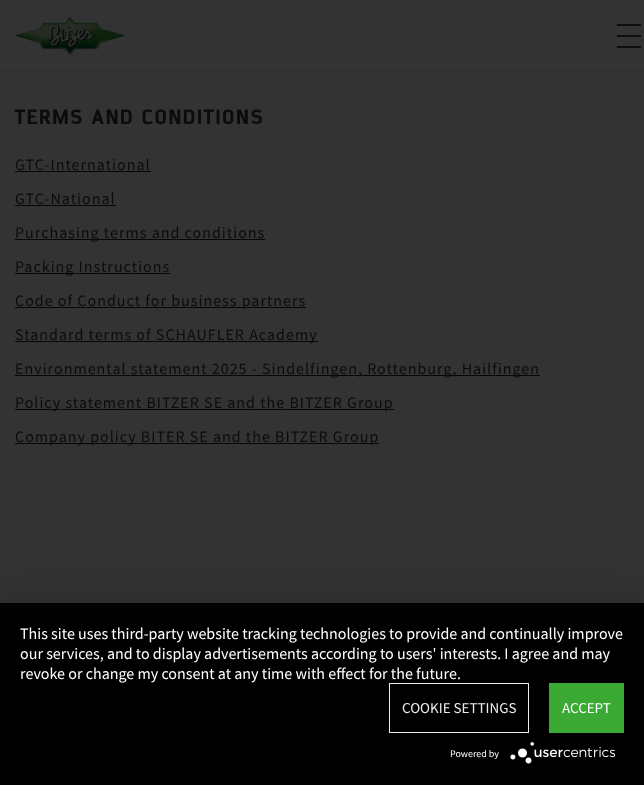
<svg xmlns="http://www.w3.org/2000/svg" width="644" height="785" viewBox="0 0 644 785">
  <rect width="100%" height="100%" fill="rgb(51,51,51)"/>
  <rect x="0" y="71" width="644" height="1" fill="rgb(47,47,47)"/>
  <image x="15" y="16" width="110" height="39" href="pic1.png"/>
  <rect x="617" y="24" width="24" height="2" fill="rgb(14,14,14)"/>
  <rect x="617" y="35" width="24" height="2" fill="rgb(14,14,14)"/>
  <rect x="617" y="46" width="24" height="2" fill="rgb(14,14,14)"/>
  <text x="15" y="124" font-family="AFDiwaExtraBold" font-size="18" font-weight="800" letter-spacing="2" fill="rgb(12,12,12)">TERMS AND CONDITIONS</text>
  <text x="15" y="170" font-family="Source Sans Pro" font-size="16" letter-spacing="1" fill="rgb(12,12,12)">GTC-International</text>
  <rect x="15" y="171" width="136" height="1" fill="rgb(7,7,7)"/>
  <text x="15" y="204" font-family="Source Sans Pro" font-size="16" letter-spacing="1" fill="rgb(12,12,12)">GTC-National</text>
  <rect x="15" y="205" width="101" height="1" fill="rgb(7,7,7)"/>
  <rect x="15" y="239" width="250" height="1" fill="rgb(7,7,7)"/>
  <text x="15" y="238" font-family="Source Sans Pro" font-size="16" letter-spacing="1" fill="rgb(12,12,12)">Purchasing terms and conditions</text>
  <rect x="15" y="273" width="155" height="1" fill="rgb(7,7,7)"/>
  <text x="15" y="272" font-family="Source Sans Pro" font-size="16" letter-spacing="1" fill="rgb(12,12,12)">Packing Instructions</text>
  <rect x="15" y="307" width="291" height="1" fill="rgb(7,7,7)"/>
  <text x="15" y="306" font-family="Source Sans Pro" font-size="16" letter-spacing="1" fill="rgb(12,12,12)">Code of Conduct for business partners</text>
  <rect x="15" y="341" width="303" height="1" fill="rgb(7,7,7)"/>
  <text x="15" y="340" font-family="Source Sans Pro" font-size="16" letter-spacing="1" fill="rgb(12,12,12)">Standard terms of SCHAUFLER Academy</text>
  <rect x="15" y="375" width="525" height="1" fill="rgb(7,7,7)"/>
  <text x="15" y="374" font-family="Source Sans Pro" font-size="16" letter-spacing="1" fill="rgb(12,12,12)">Environmental statement 2025 - Sindelfingen, Rottenburg, Hailfingen</text>
  <rect x="15" y="409" width="379" height="1" fill="rgb(7,7,7)"/>
  <text x="15" y="408" font-family="Source Sans Pro" font-size="16" letter-spacing="1" fill="rgb(12,12,12)">Policy statement BITZER SE and the BITZER Group</text>
  <rect x="15" y="443" width="364" height="1" fill="rgb(7,7,7)"/>
  <text x="15" y="442" font-family="Source Sans Pro" font-size="16" letter-spacing="1" fill="rgb(12,12,12)">Company policy BITER SE and the BITZER Group</text>
  <rect x="0" y="609" width="644" height="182" fill="rgba(0,0,0,0.3)" filter="blur(18px)"/>
  <rect x="0" y="603" width="644" height="182" fill="rgb(0,0,0)"/>
  <g font-family="Source Sans Pro" font-size="16" fill="rgb(255,255,255)">
    <text>
      <tspan x="20" y="639">This site uses third-party website tracking technologies to provide and continually improve</tspan>
      <tspan x="20" y="659">our services, and to display advertisements according to users' interests. I agree and may</tspan>
      <tspan x="20" y="679">revoke or change my consent at any time with effect for the future.</tspan>
    </text>
  </g>
  <rect x="389.5" y="683.5" width="139" height="49" fill="none" stroke="rgb(236,237,237)"/>
  <text x="402" y="713" font-family="Source Sans Pro" font-size="15" fill="rgb(236,237,237)">COOKIE SETTINGS</text>
  <rect x="549" y="683" width="75" height="50" fill="rgb(58,170,53)"/>
  <text x="562" y="713" font-family="Source Sans Pro" font-size="15" fill="rgb(255,255,255)">ACCEPT</text>
  <text x="450" y="757" font-family="Source Sans Pro" font-size="10" fill="rgb(255,255,255)">Powered by</text>
  <image x="510" y="742" width="106" height="22" href="pic2.png"/>
</svg>
